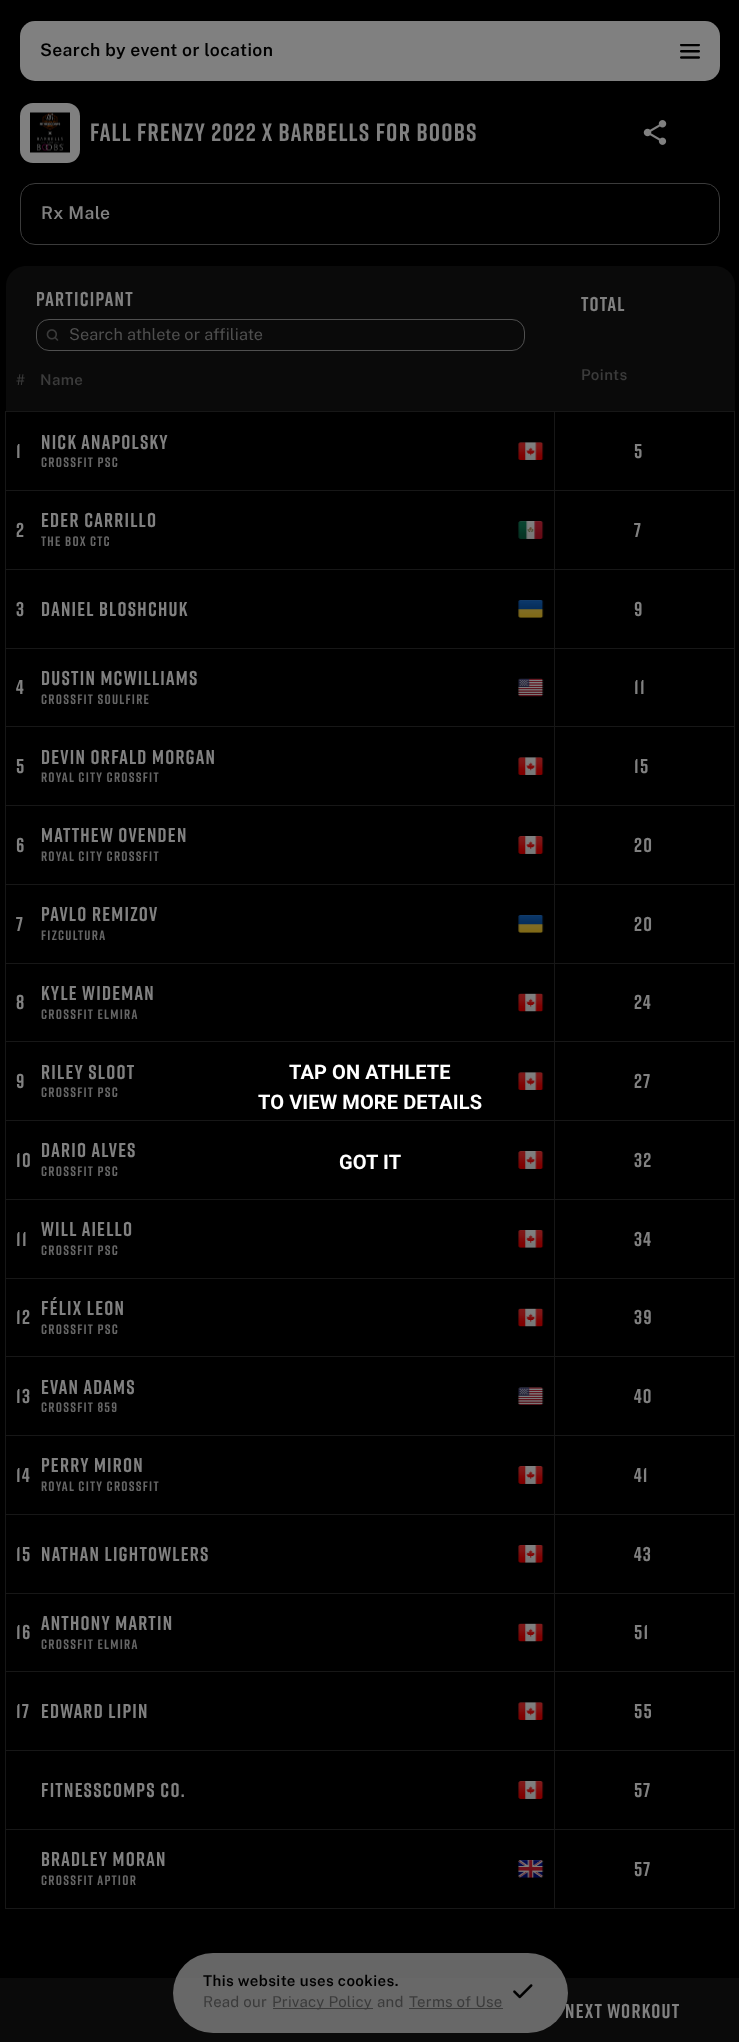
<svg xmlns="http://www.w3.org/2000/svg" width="739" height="2042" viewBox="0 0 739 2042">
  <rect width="100%" height="100%" fill="rgb(0,0,0)"/>
  <rect x="20" y="21" width="700" height="60" rx="15" fill="rgb(128,128,128)"/>
  <text x="40" y="56" font-family="Public Sans" font-size="17.5" font-weight="600" letter-spacing="0.4" fill="rgb(0,0,0)">Search by event or location</text>
  <image x="680" y="44" width="20" height="15" href="pic1.png"/>
  <rect x="20" y="103" width="60" height="60" rx="13" fill="rgb(128,128,128)"/>
  <image x="30" y="112" width="40" height="41" href="pic2.png"/>
  <text x="90" y="141" font-family="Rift" font-size="25" font-weight="bold" letter-spacing="1.25" fill="rgb(128,128,128)">FALL FRENZY 2022 X BARBELLS FOR BOOBS</text>
  <image x="643" y="120" width="24" height="25" href="pic3.png"/>
  <rect x="20.5" y="183.5" width="699" height="61" rx="14.5" fill="none" stroke="rgb(59,59,59)"/>
  <text x="41" y="219" font-family="Public Sans" font-size="17.5" font-weight="600" letter-spacing="0.4" fill="rgb(128,128,128)">Rx Male</text>
  <path d="M26 266H555V411H6V286C6 275 15 266 26 266Z" fill="rgb(10,10,10)"/>
  <text x="36" y="306" font-family="Rift" font-size="20" font-weight="bold" letter-spacing="1.25" fill="rgb(128,128,128)">PARTICIPANT</text>
  <rect x="36.5" y="319.5" width="488" height="31" rx="12.5" fill="none" stroke="rgb(80,80,80)"/>
  <image x="46" y="329" width="13" height="12" href="pic4.png"/>
  <text x="69" y="340" font-family="Public Sans" font-size="16.25" letter-spacing="0.1" fill="rgb(79,79,79)">Search athlete or affiliate</text>
  <g font-family="Public Sans" font-size="15" font-weight="600" letter-spacing="0.4" fill="rgb(59,59,59)">
    <text x="16" y="385">#</text>
    <text x="40" y="385">Name</text>
  </g>
  <path d="M555 266H715C726 266 735 275 735 286V411H555Z" fill="rgb(10,10,10)"/>
  <text x="581" y="311" font-family="Rift" font-size="20" font-weight="bold" letter-spacing="1.25" fill="rgb(128,128,128)">TOTAL</text>
  <text x="581" y="380" font-family="Public Sans" font-size="15" font-weight="600" letter-spacing="0.4" fill="rgb(59,59,59)">Points</text>
  <rect x="554" y="411" width="181" height="1" fill="rgb(23,23,23)"/>
  <rect x="554" y="490" width="181" height="1" fill="rgb(23,23,23)"/>
  <rect x="554" y="569" width="181" height="1" fill="rgb(23,23,23)"/>
  <rect x="554" y="648" width="181" height="1" fill="rgb(23,23,23)"/>
  <rect x="554" y="726" width="181" height="1" fill="rgb(23,23,23)"/>
  <rect x="554" y="805" width="181" height="1" fill="rgb(23,23,23)"/>
  <rect x="554" y="884" width="181" height="1" fill="rgb(23,23,23)"/>
  <rect x="554" y="963" width="181" height="1" fill="rgb(23,23,23)"/>
  <rect x="554" y="1041" width="181" height="1" fill="rgb(23,23,23)"/>
  <rect x="554" y="1120" width="181" height="1" fill="rgb(23,23,23)"/>
  <rect x="554" y="1199" width="181" height="1" fill="rgb(23,23,23)"/>
  <rect x="554" y="1278" width="181" height="1" fill="rgb(23,23,23)"/>
  <rect x="554" y="1356" width="181" height="1" fill="rgb(23,23,23)"/>
  <rect x="554" y="1435" width="181" height="1" fill="rgb(23,23,23)"/>
  <rect x="554" y="1514" width="181" height="1" fill="rgb(23,23,23)"/>
  <rect x="554" y="1593" width="181" height="1" fill="rgb(23,23,23)"/>
  <rect x="554" y="1671" width="181" height="1" fill="rgb(23,23,23)"/>
  <rect x="554" y="1750" width="181" height="1" fill="rgb(23,23,23)"/>
  <rect x="554" y="1829" width="181" height="1" fill="rgb(23,23,23)"/>
  <rect x="734" y="1829" width="1" height="80" fill="rgb(23,23,23)"/>
  <rect x="554" y="1908" width="181" height="1" fill="rgb(23,23,23)"/>
  <rect x="554" y="1829" width="1" height="80" fill="rgb(23,23,23)"/>
  <rect x="5" y="1829" width="550" height="1" fill="rgb(23,23,23)"/>
  <rect x="554" y="1750" width="1" height="80" fill="rgb(23,23,23)"/>
  <rect x="5" y="1750" width="550" height="1" fill="rgb(23,23,23)"/>
  <rect x="554" y="1671" width="1" height="80" fill="rgb(23,23,23)"/>
  <rect x="5" y="1671" width="550" height="1" fill="rgb(23,23,23)"/>
  <rect x="554" y="1593" width="1" height="80" fill="rgb(23,23,23)"/>
  <rect x="5" y="1593" width="550" height="1" fill="rgb(23,23,23)"/>
  <rect x="554" y="1514" width="1" height="80" fill="rgb(23,23,23)"/>
  <rect x="5" y="1514" width="550" height="1" fill="rgb(23,23,23)"/>
  <rect x="554" y="1435" width="1" height="80" fill="rgb(23,23,23)"/>
  <rect x="5" y="1435" width="550" height="1" fill="rgb(23,23,23)"/>
  <rect x="554" y="1356" width="1" height="80" fill="rgb(23,23,23)"/>
  <rect x="5" y="1356" width="550" height="1" fill="rgb(23,23,23)"/>
  <rect x="554" y="1278" width="1" height="80" fill="rgb(23,23,23)"/>
  <rect x="5" y="1278" width="550" height="1" fill="rgb(23,23,23)"/>
  <rect x="554" y="1199" width="1" height="80" fill="rgb(23,23,23)"/>
  <rect x="5" y="1199" width="550" height="1" fill="rgb(23,23,23)"/>
  <rect x="554" y="1120" width="1" height="80" fill="rgb(23,23,23)"/>
  <rect x="5" y="1120" width="550" height="1" fill="rgb(23,23,23)"/>
  <rect x="554" y="1041" width="1" height="80" fill="rgb(23,23,23)"/>
  <rect x="5" y="1041" width="550" height="1" fill="rgb(23,23,23)"/>
  <rect x="554" y="963" width="1" height="80" fill="rgb(23,23,23)"/>
  <rect x="5" y="963" width="550" height="1" fill="rgb(23,23,23)"/>
  <rect x="554" y="884" width="1" height="80" fill="rgb(23,23,23)"/>
  <rect x="5" y="884" width="550" height="1" fill="rgb(23,23,23)"/>
  <rect x="554" y="805" width="1" height="80" fill="rgb(23,23,23)"/>
  <rect x="5" y="805" width="550" height="1" fill="rgb(23,23,23)"/>
  <rect x="554" y="726" width="1" height="80" fill="rgb(23,23,23)"/>
  <rect x="5" y="726" width="550" height="1" fill="rgb(23,23,23)"/>
  <rect x="554" y="648" width="1" height="80" fill="rgb(23,23,23)"/>
  <rect x="5" y="648" width="550" height="1" fill="rgb(23,23,23)"/>
  <rect x="554" y="569" width="1" height="80" fill="rgb(23,23,23)"/>
  <rect x="5" y="569" width="550" height="1" fill="rgb(23,23,23)"/>
  <rect x="554" y="490" width="1" height="80" fill="rgb(23,23,23)"/>
  <rect x="5" y="490" width="550" height="1" fill="rgb(23,23,23)"/>
  <rect x="554" y="411" width="1" height="80" fill="rgb(23,23,23)"/>
  <rect x="5" y="411" width="550" height="1" fill="rgb(23,23,23)"/>
  <rect x="5" y="1908" width="550" height="1" fill="rgb(23,23,23)"/>
  <rect x="5" y="1829" width="1" height="80" fill="rgb(23,23,23)"/>
  <rect x="5" y="1750" width="1" height="80" fill="rgb(23,23,23)"/>
  <rect x="5" y="1671" width="1" height="80" fill="rgb(23,23,23)"/>
  <rect x="5" y="1593" width="1" height="80" fill="rgb(23,23,23)"/>
  <rect x="5" y="1514" width="1" height="80" fill="rgb(23,23,23)"/>
  <rect x="5" y="1435" width="1" height="80" fill="rgb(23,23,23)"/>
  <rect x="5" y="1356" width="1" height="80" fill="rgb(23,23,23)"/>
  <rect x="5" y="1278" width="1" height="80" fill="rgb(23,23,23)"/>
  <rect x="5" y="1199" width="1" height="80" fill="rgb(23,23,23)"/>
  <rect x="5" y="1120" width="1" height="80" fill="rgb(23,23,23)"/>
  <rect x="5" y="1041" width="1" height="80" fill="rgb(23,23,23)"/>
  <rect x="5" y="963" width="1" height="80" fill="rgb(23,23,23)"/>
  <rect x="5" y="884" width="1" height="80" fill="rgb(23,23,23)"/>
  <rect x="5" y="805" width="1" height="80" fill="rgb(23,23,23)"/>
  <rect x="5" y="726" width="1" height="80" fill="rgb(23,23,23)"/>
  <rect x="5" y="648" width="1" height="80" fill="rgb(23,23,23)"/>
  <rect x="5" y="569" width="1" height="80" fill="rgb(23,23,23)"/>
  <rect x="5" y="490" width="1" height="80" fill="rgb(23,23,23)"/>
  <rect x="5" y="411" width="1" height="80" fill="rgb(23,23,23)"/>
  <g font-family="Rift" font-size="20" font-weight="bold" letter-spacing="1.25" fill="rgb(128,128,128)">
    <text x="16" y="458">1</text>
    <text x="41" y="449">NICK ANAPOLSKY</text>
  </g>
  <text x="41" y="467" font-family="Rift" font-size="13.75" font-weight="bold" letter-spacing="1.25" fill="rgb(102,102,102)">CROSSFIT PSC</text>
  <image x="518" y="442" width="26" height="18" href="pic5.png"/>
  <rect x="734" y="1750" width="1" height="80" fill="rgb(23,23,23)"/>
  <rect x="734" y="1671" width="1" height="80" fill="rgb(23,23,23)"/>
  <rect x="734" y="1593" width="1" height="80" fill="rgb(23,23,23)"/>
  <rect x="734" y="1514" width="1" height="80" fill="rgb(23,23,23)"/>
  <rect x="734" y="1435" width="1" height="80" fill="rgb(23,23,23)"/>
  <rect x="734" y="1356" width="1" height="80" fill="rgb(23,23,23)"/>
  <rect x="734" y="1278" width="1" height="80" fill="rgb(23,23,23)"/>
  <rect x="734" y="1199" width="1" height="80" fill="rgb(23,23,23)"/>
  <rect x="734" y="1120" width="1" height="80" fill="rgb(23,23,23)"/>
  <rect x="734" y="1041" width="1" height="80" fill="rgb(23,23,23)"/>
  <rect x="734" y="963" width="1" height="80" fill="rgb(23,23,23)"/>
  <rect x="734" y="884" width="1" height="80" fill="rgb(23,23,23)"/>
  <rect x="734" y="805" width="1" height="80" fill="rgb(23,23,23)"/>
  <rect x="734" y="726" width="1" height="80" fill="rgb(23,23,23)"/>
  <rect x="734" y="648" width="1" height="80" fill="rgb(23,23,23)"/>
  <rect x="734" y="569" width="1" height="80" fill="rgb(23,23,23)"/>
  <rect x="734" y="490" width="1" height="80" fill="rgb(23,23,23)"/>
  <rect x="734" y="411" width="1" height="80" fill="rgb(23,23,23)"/>
  <g font-family="Rift" font-size="20" font-weight="bold" letter-spacing="1.25" fill="rgb(128,128,128)">
    <text x="634" y="458">5</text>
    <text x="16" y="537">2</text>
    <text x="41" y="527">EDER CARRILLO</text>
  </g>
  <text x="41" y="546" font-family="Rift" font-size="13.75" font-weight="bold" letter-spacing="1.25" fill="rgb(102,102,102)">THE BOX CTC</text>
  <image x="518" y="521" width="26" height="18" href="pic6.png"/>
  <g font-family="Rift" font-size="20" font-weight="bold" letter-spacing="1.25" fill="rgb(128,128,128)">
    <text x="634" y="537">7</text>
    <text x="16" y="616">3</text>
    <text x="41" y="616">DANIEL BLOSHCHUK</text>
  </g>
  <image x="518" y="600" width="26" height="18" href="pic7.png"/>
  <g font-family="Rift" font-size="20" font-weight="bold" letter-spacing="1.25" fill="rgb(128,128,128)">
    <text x="634" y="616">9</text>
    <text x="16" y="694">4</text>
    <text x="41" y="685">DUSTIN MCWILLIAMS</text>
  </g>
  <text x="41" y="704" font-family="Rift" font-size="13.75" font-weight="bold" letter-spacing="1.25" fill="rgb(102,102,102)">CROSSFIT SOULFIRE</text>
  <image x="518" y="678" width="26" height="19" href="pic8.png"/>
  <g font-family="Rift" font-size="20" font-weight="bold" letter-spacing="1.25" fill="rgb(128,128,128)">
    <text x="634" y="694">11</text>
    <text x="16" y="773">5</text>
    <text x="41" y="764">DEVIN ORFALD MORGAN</text>
  </g>
  <text x="41" y="782" font-family="Rift" font-size="13.75" font-weight="bold" letter-spacing="1.25" fill="rgb(102,102,102)">ROYAL CITY CROSSFIT</text>
  <image x="518" y="757" width="26" height="18" href="pic9.png"/>
  <g font-family="Rift" font-size="20" font-weight="bold" letter-spacing="1.25" fill="rgb(128,128,128)">
    <text x="634" y="773">15</text>
    <text x="16" y="852">6</text>
    <text x="41" y="842">MATTHEW OVENDEN</text>
  </g>
  <text x="41" y="861" font-family="Rift" font-size="13.75" font-weight="bold" letter-spacing="1.25" fill="rgb(102,102,102)">ROYAL CITY CROSSFIT</text>
  <image x="518" y="836" width="26" height="18" href="pic10.png"/>
  <g font-family="Rift" font-size="20" font-weight="bold" letter-spacing="1.25" fill="rgb(128,128,128)">
    <text x="634" y="852">20</text>
    <text x="16" y="931">7</text>
    <text x="41" y="921">PAVLO REMIZOV</text>
  </g>
  <text x="41" y="940" font-family="Rift" font-size="13.75" font-weight="bold" letter-spacing="1.25" fill="rgb(102,102,102)">FIZCULTURA</text>
  <image x="518" y="915" width="26" height="18" href="pic7.png"/>
  <g font-family="Rift" font-size="20" font-weight="bold" letter-spacing="1.25" fill="rgb(128,128,128)">
    <text x="634" y="931">20</text>
    <text x="16" y="1009">8</text>
    <text x="41" y="1000">KYLE WIDEMAN</text>
  </g>
  <text x="41" y="1019" font-family="Rift" font-size="13.75" font-weight="bold" letter-spacing="1.25" fill="rgb(102,102,102)">CROSSFIT ELMIRA</text>
  <image x="518" y="993" width="26" height="19" href="pic11.png"/>
  <g font-family="Rift" font-size="20" font-weight="bold" letter-spacing="1.25" fill="rgb(128,128,128)">
    <text x="634" y="1009">24</text>
    <text x="16" y="1088">9</text>
    <text x="41" y="1079">RILEY SLOOT</text>
  </g>
  <text x="41" y="1097" font-family="Rift" font-size="13.75" font-weight="bold" letter-spacing="1.25" fill="rgb(102,102,102)">CROSSFIT PSC</text>
  <image x="518" y="1072" width="26" height="18" href="pic9.png"/>
  <g font-family="Rift" font-size="20" font-weight="bold" letter-spacing="1.25" fill="rgb(128,128,128)">
    <text x="634" y="1088">27</text>
    <text x="16" y="1167">10</text>
    <text x="41" y="1157">DARIO ALVES</text>
  </g>
  <text x="41" y="1176" font-family="Rift" font-size="13.75" font-weight="bold" letter-spacing="1.25" fill="rgb(102,102,102)">CROSSFIT PSC</text>
  <image x="518" y="1151" width="26" height="18" href="pic12.png"/>
  <g font-family="Rift" font-size="20" font-weight="bold" letter-spacing="1.25" fill="rgb(128,128,128)">
    <text x="634" y="1167">32</text>
    <text x="16" y="1246">11</text>
    <text x="41" y="1236">WILL AIELLO</text>
  </g>
  <text x="41" y="1255" font-family="Rift" font-size="13.75" font-weight="bold" letter-spacing="1.25" fill="rgb(102,102,102)">CROSSFIT PSC</text>
  <image x="518" y="1230" width="26" height="18" href="pic13.png"/>
  <g font-family="Rift" font-size="20" font-weight="bold" letter-spacing="1.25" fill="rgb(128,128,128)">
    <text x="634" y="1246">34</text>
    <text x="16" y="1324">12</text>
    <text x="41" y="1315">FÉLIX LEON</text>
  </g>
  <text x="41" y="1334" font-family="Rift" font-size="13.75" font-weight="bold" letter-spacing="1.25" fill="rgb(102,102,102)">CROSSFIT PSC</text>
  <image x="518" y="1308" width="26" height="19" href="pic14.png"/>
  <g font-family="Rift" font-size="20" font-weight="bold" letter-spacing="1.25" fill="rgb(128,128,128)">
    <text x="634" y="1324">39</text>
    <text x="16" y="1403">13</text>
    <text x="41" y="1394">EVAN ADAMS</text>
  </g>
  <text x="41" y="1412" font-family="Rift" font-size="13.75" font-weight="bold" letter-spacing="1.25" fill="rgb(102,102,102)">CROSSFIT 859</text>
  <image x="518" y="1387" width="26" height="18" href="pic15.png"/>
  <g font-family="Rift" font-size="20" font-weight="bold" letter-spacing="1.25" fill="rgb(128,128,128)">
    <text x="634" y="1403">40</text>
    <text x="16" y="1482">14</text>
    <text x="41" y="1472">PERRY MIRON</text>
  </g>
  <text x="41" y="1491" font-family="Rift" font-size="13.75" font-weight="bold" letter-spacing="1.25" fill="rgb(102,102,102)">ROYAL CITY CROSSFIT</text>
  <image x="518" y="1466" width="26" height="18" href="pic16.png"/>
  <g font-family="Rift" font-size="20" font-weight="bold" letter-spacing="1.25" fill="rgb(128,128,128)">
    <text x="634" y="1482">41</text>
    <text x="16" y="1561">15</text>
    <text x="41" y="1561">NATHAN LIGHTOWLERS</text>
  </g>
  <image x="518" y="1545" width="26" height="18" href="pic13.png"/>
  <g font-family="Rift" font-size="20" font-weight="bold" letter-spacing="1.25" fill="rgb(128,128,128)">
    <text x="634" y="1561">43</text>
    <text x="16" y="1639">16</text>
    <text x="41" y="1630">ANTHONY MARTIN</text>
  </g>
  <text x="41" y="1649" font-family="Rift" font-size="13.75" font-weight="bold" letter-spacing="1.25" fill="rgb(102,102,102)">CROSSFIT ELMIRA</text>
  <image x="518" y="1623" width="26" height="19" href="pic14.png"/>
  <g font-family="Rift" font-size="20" font-weight="bold" letter-spacing="1.25" fill="rgb(128,128,128)">
    <text x="634" y="1639">51</text>
    <text x="16" y="1718">17</text>
    <text x="41" y="1718">EDWARD LIPIN</text>
  </g>
  <image x="518" y="1702" width="26" height="18" href="pic9.png"/>
  <g font-family="Rift" font-size="20" font-weight="bold" letter-spacing="1.25" fill="rgb(128,128,128)">
    <text x="634" y="1718">55</text>
    <text x="41" y="1797">FITNESSCOMPS CO.</text>
  </g>
  <image x="518" y="1781" width="26" height="18" href="pic10.png"/>
  <g font-family="Rift" font-size="20" font-weight="bold" letter-spacing="1.25" fill="rgb(128,128,128)">
    <text x="634" y="1797">57</text>
    <text x="41" y="1866">BRADLEY MORAN</text>
  </g>
  <text x="41" y="1885" font-family="Rift" font-size="13.75" font-weight="bold" letter-spacing="1.25" fill="rgb(102,102,102)">CROSSFIT APTIOR</text>
  <image x="518" y="1860" width="26" height="18" href="pic17.png"/>
  <text x="634" y="1876" font-family="Rift" font-size="20" font-weight="bold" letter-spacing="1.25" fill="rgb(128,128,128)">57</text>
  <rect x="0" y="1978" width="739" height="64" fill="rgb(10,10,10)"/>
  <text x="565" y="2018" font-family="Rift" font-size="20" font-weight="bold" letter-spacing="1.25" fill="rgb(128,128,128)">NEXT WORKOUT</text>
  <rect x="173" y="1953" width="395" height="80" rx="40" fill="rgba(128,128,128,0.8)"/>
  <text x="203" y="1986" font-family="Public Sans" font-size="15" font-weight="600" letter-spacing="0.4" fill="rgb(0,0,0)">This website uses cookies.</text>
  <text x="203" y="2007" font-family="Public Sans" font-size="15" letter-spacing="0.25" fill="rgb(59,59,59)">Read our</text>
  <rect x="273" y="2008" width="100" height="1" fill="rgb(59,59,59)"/>
  <g font-family="Public Sans" font-size="15" letter-spacing="0.25" fill="rgb(59,59,59)">
    <text x="272" y="2007">Privacy Policy</text>
    <text x="377" y="2007">and</text>
    <text x="409" y="2007">Terms of Use</text>
  </g>
  <rect x="409" y="2008" width="94" height="1" fill="rgb(59,59,59)"/>
  <image x="513" y="1984" width="20" height="15" href="pic18.png"/>
  <g font-family="Roboto" font-size="20" font-weight="bold" letter-spacing="0.1" fill="rgb(255,255,255)">
    <text x="289" y="1079">TAP ON ATHLETE</text>
    <text x="258" y="1109">TO VIEW MORE DETAILS</text>
    <text x="339" y="1169">GOT IT</text>
  </g>
</svg>
